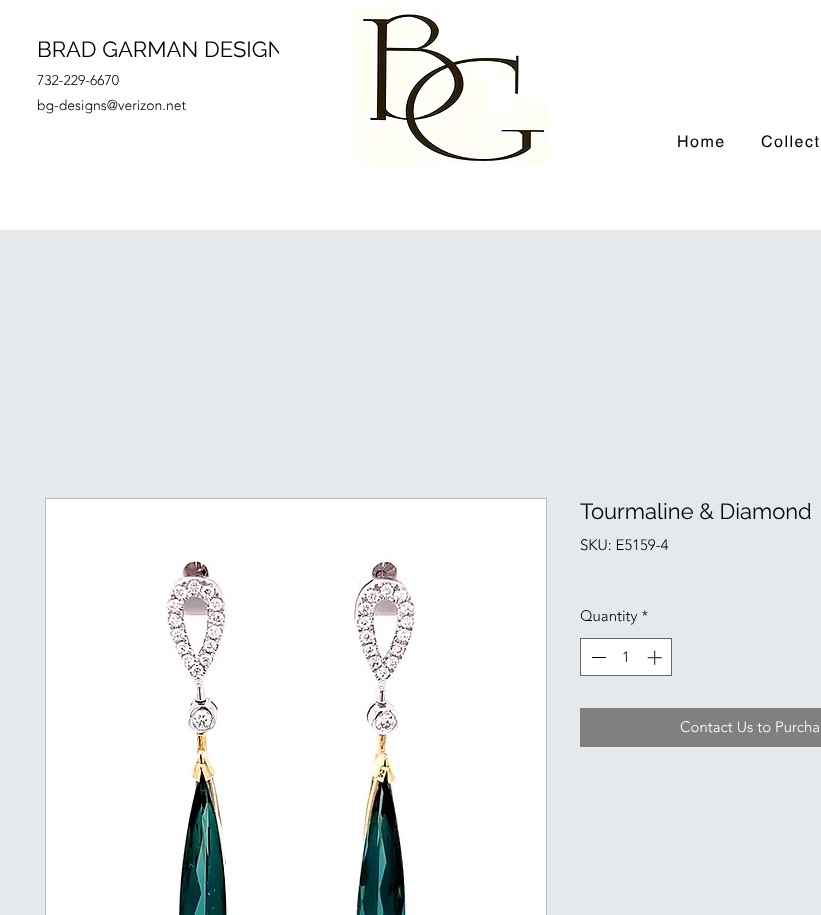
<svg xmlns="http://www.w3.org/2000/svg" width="821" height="915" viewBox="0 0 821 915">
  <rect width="100%" height="100%" fill="rgb(255,255,255)"/>
  <text x="37" y="57" font-family="Raleway" font-size="22" fill="rgb(0,0,0)">BRAD GARMAN DESIGN</text>
  <g font-family="'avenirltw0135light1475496'" font-size="14" font-weight="300" fill="rgb(0,0,0)">
    <text>
      <tspan x="37" y="85">732-229-6670</tspan>
      <tspan x="37" y="110">bg-designs@verizon.net</tspan>
    </text>
  </g>
  <rect x="279" y="41" width="4" height="16" fill="rgb(255,255,255)"/>
  <image x="355" y="9" width="193" height="155" href="pic1.png"/>
  <g font-family="helvetica" font-size="16" letter-spacing="1.5" fill="rgb(0,0,0)">
    <text x="677" y="147">Home</text>
    <text x="761" y="147">Collect</text>
  </g>
  <rect x="0" y="230" width="821" height="685" fill="rgb(230,233,235)"/>
  <rect x="45.5" y="498.5" width="501" height="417" fill="none" stroke="rgb(184,186,188)"/>
  <image x="46" y="499" width="500" height="416" href="pic2.png"/>
  <text x="580" y="519" font-family="Raleway" font-size="22" fill="rgb(0,0,0)">Tourmaline &amp; Diamond</text>
  <g font-family="'avenirltw0135light1475496'" font-size="15" font-weight="300" fill="rgb(0,0,0)">
    <text x="580" y="550">SKU: E5159-4</text>
    <text x="580" y="621">Quantity *</text>
  </g>
  <rect x="580.5" y="638.5" width="91" height="37" fill="rgb(255,255,255)" stroke="rgb(102,102,102)"/>
  <rect x="592" y="657" width="14" height="1" fill="rgb(0,0,0)"/>
  <text x="622" y="662" font-family="'avenirltw0135light1475496'" font-size="15" font-weight="300" fill="rgb(0,0,0)">1</text>
  <image x="647" y="650" width="15" height="15" href="pic3.png"/>
  <rect x="580" y="708" width="241" height="39" fill="rgb(128,128,128)"/>
  <text x="680" y="732" font-family="'avenirltw0135light1475496'" font-size="15" font-weight="300" fill="rgb(255,255,255)">Contact Us to Purcha</text>
</svg>
